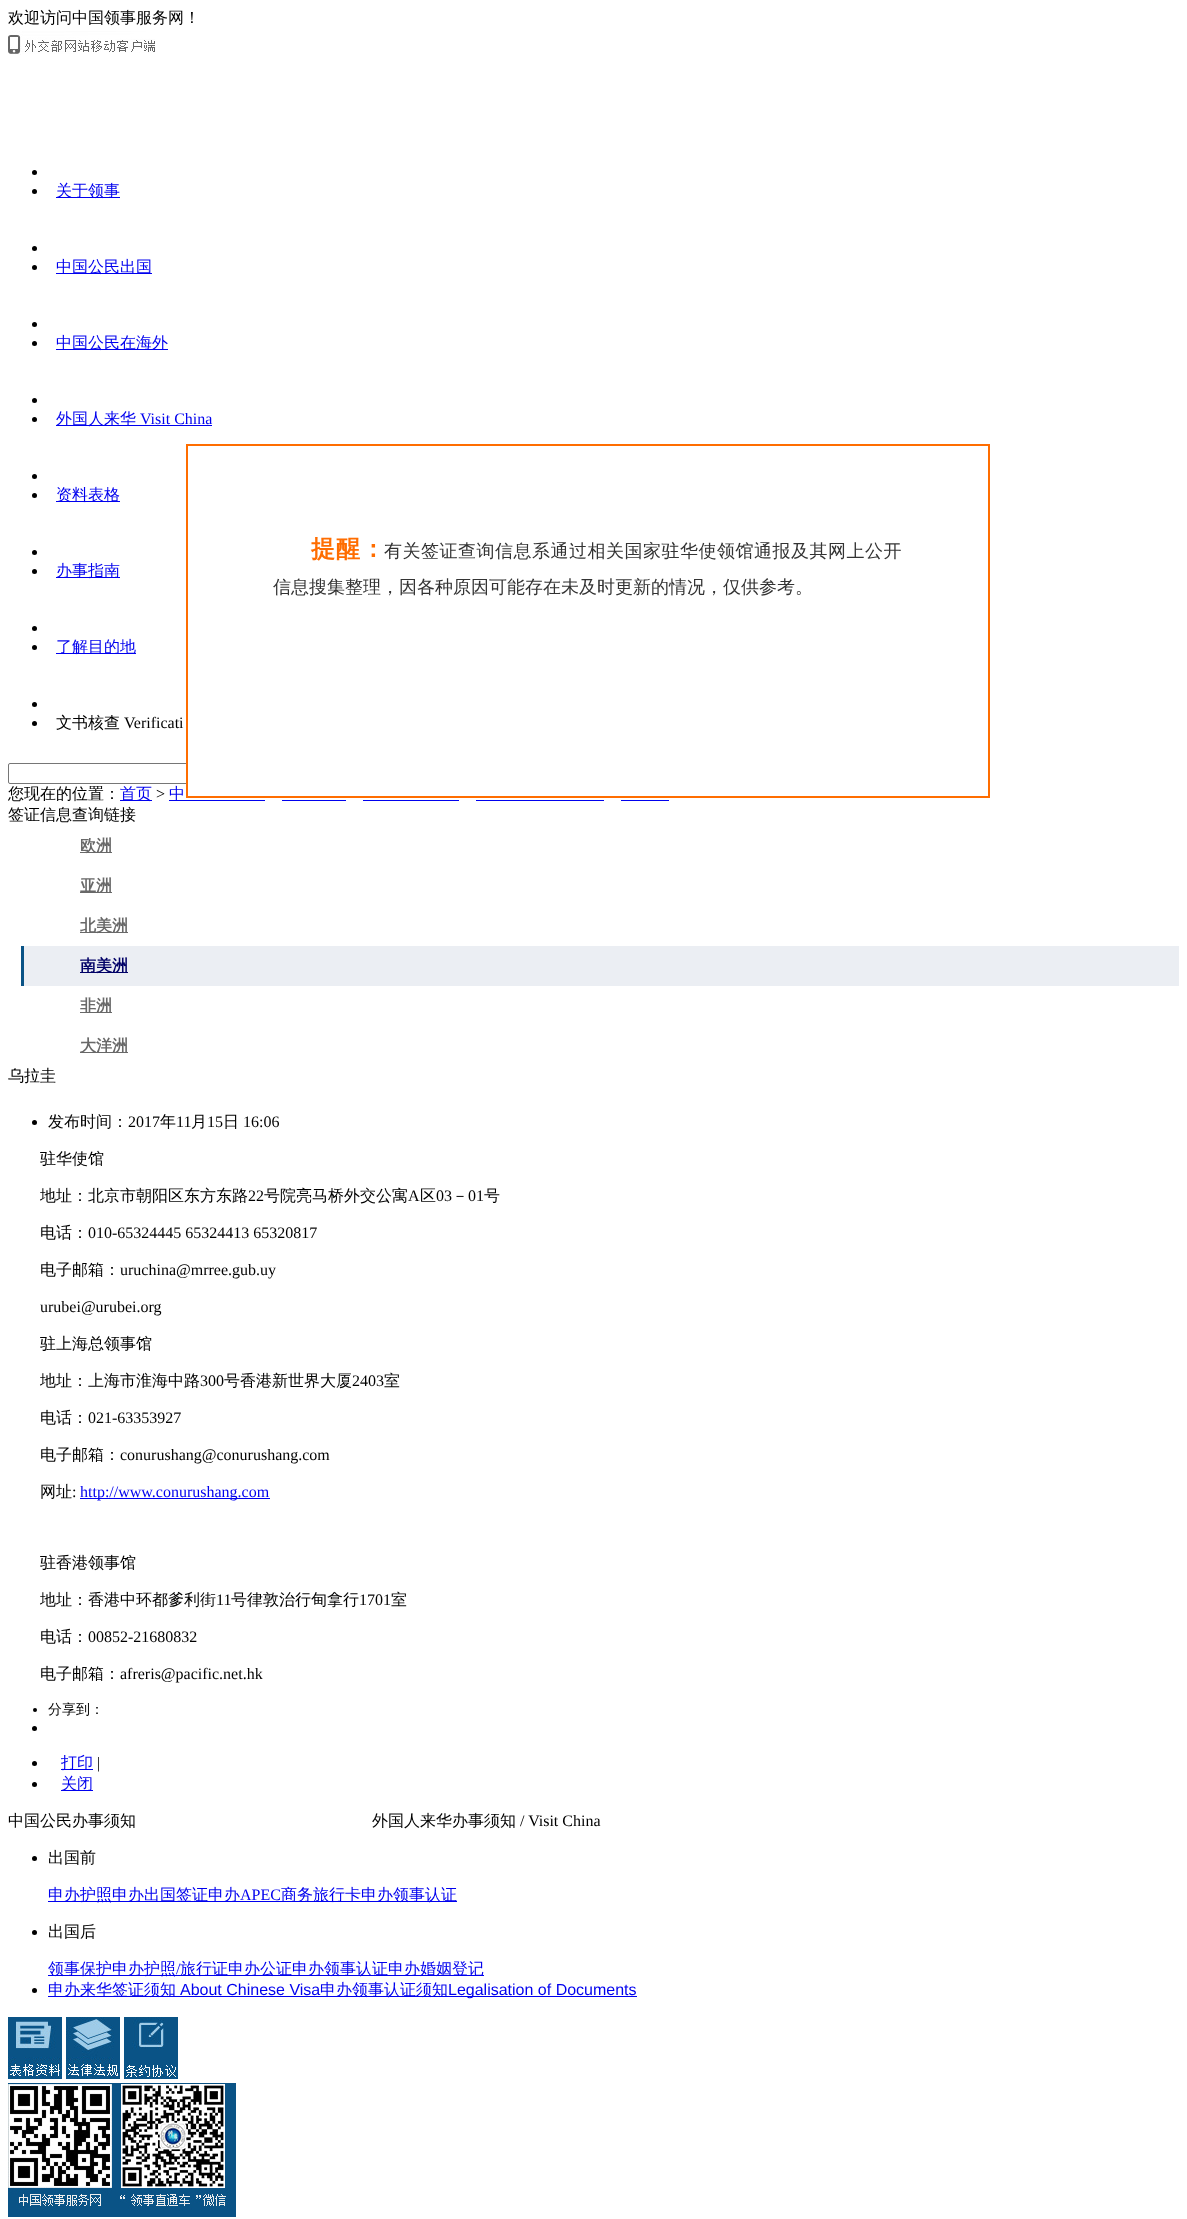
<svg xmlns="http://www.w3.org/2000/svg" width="1187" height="2219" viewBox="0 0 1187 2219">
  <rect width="100%" height="100%" fill="rgb(255,255,255)"/>
  <text x="8" y="23" font-family="WenQuanYi Zen Hei" font-size="16" font-weight="500" fill="rgb(0,0,0)">欢迎访问中国领事服务网！</text>
  <image x="8" y="31" width="147" height="24" href="pic1.png"/>
  <circle cx="34.5" cy="172.5" r="2.5" fill="rgb(0,0,0)"/>
  <circle cx="34.5" cy="191.5" r="2.5" fill="rgb(0,0,0)"/>
  <rect x="56" y="197" width="64" height="1" fill="rgb(0,0,238)"/>
  <text x="56" y="196" font-family="WenQuanYi Zen Hei" font-size="16" font-weight="500" fill="rgb(0,0,238)">关于领事</text>
  <circle cx="34.5" cy="248.5" r="2.5" fill="rgb(0,0,0)"/>
  <circle cx="34.5" cy="267.5" r="2.5" fill="rgb(0,0,0)"/>
  <rect x="56" y="273" width="96" height="1" fill="rgb(0,0,238)"/>
  <text x="56" y="272" font-family="WenQuanYi Zen Hei" font-size="16" font-weight="500" fill="rgb(0,0,238)">中国公民出国</text>
  <circle cx="34.5" cy="324.5" r="2.5" fill="rgb(0,0,0)"/>
  <circle cx="34.5" cy="343.5" r="2.5" fill="rgb(0,0,0)"/>
  <rect x="56" y="349" width="112" height="1" fill="rgb(0,0,238)"/>
  <text x="56" y="348" font-family="WenQuanYi Zen Hei" font-size="16" font-weight="500" fill="rgb(0,0,238)">中国公民在海外</text>
  <circle cx="34.5" cy="400.5" r="2.5" fill="rgb(0,0,0)"/>
  <circle cx="34.5" cy="419.5" r="2.5" fill="rgb(0,0,0)"/>
  <rect x="56" y="425" width="156" height="1" fill="rgb(0,0,238)"/>
  <text x="56" y="424" font-family="WenQuanYi Zen Hei" font-size="16" font-weight="500" fill="rgb(0,0,238)">外国人来华</text>
  <text x="140" y="424" font-family="Liberation Serif" font-size="16" fill="rgb(0,0,238)">Visit China</text>
  <circle cx="34.5" cy="476.5" r="2.5" fill="rgb(0,0,0)"/>
  <circle cx="34.5" cy="495.5" r="2.5" fill="rgb(0,0,0)"/>
  <rect x="56" y="501" width="64" height="1" fill="rgb(0,0,238)"/>
  <text x="56" y="500" font-family="WenQuanYi Zen Hei" font-size="16" font-weight="500" fill="rgb(0,0,238)">资料表格</text>
  <circle cx="34.5" cy="552.5" r="2.5" fill="rgb(0,0,0)"/>
  <circle cx="34.5" cy="571.5" r="2.5" fill="rgb(0,0,0)"/>
  <rect x="56" y="577" width="64" height="1" fill="rgb(0,0,238)"/>
  <text x="56" y="576" font-family="WenQuanYi Zen Hei" font-size="16" font-weight="500" fill="rgb(0,0,238)">办事指南</text>
  <circle cx="34.5" cy="628.5" r="2.5" fill="rgb(0,0,0)"/>
  <circle cx="34.5" cy="647.5" r="2.5" fill="rgb(0,0,0)"/>
  <rect x="56" y="653" width="80" height="1" fill="rgb(0,0,238)"/>
  <text x="56" y="652" font-family="WenQuanYi Zen Hei" font-size="16" font-weight="500" fill="rgb(0,0,238)">了解目的地</text>
  <circle cx="34.5" cy="704.5" r="2.5" fill="rgb(0,0,0)"/>
  <circle cx="34.5" cy="723.5" r="2.5" fill="rgb(0,0,0)"/>
  <text x="56" y="728" font-family="WenQuanYi Zen Hei" font-size="16" font-weight="500" fill="rgb(0,0,0)">文书核查</text>
  <text x="124" y="728" font-family="Liberation Serif" font-size="16" fill="rgb(0,0,0)">Verificati</text>
  <rect x="8.5" y="763.5" width="184" height="20" rx="1.5" fill="none" stroke="rgb(118,118,118)"/>
  <text x="8" y="799" font-family="WenQuanYi Zen Hei" font-size="16" font-weight="500" fill="rgb(0,0,0)">您现在的位置：</text>
  <rect x="120" y="800" width="32" height="1" fill="rgb(0,0,238)"/>
  <text x="120" y="799" font-family="WenQuanYi Zen Hei" font-size="16" font-weight="500" fill="rgb(0,0,238)">首页</text>
  <text x="156" y="799" font-family="Liberation Serif" font-size="16" fill="rgb(0,0,0)">&gt;</text>
  <rect x="169" y="800" width="96" height="1" fill="rgb(0,0,238)"/>
  <text x="169" y="799" font-family="WenQuanYi Zen Hei" font-size="16" font-weight="500" fill="rgb(0,0,238)">中</text>
  <rect x="282" y="800" width="64" height="1" fill="rgb(0,0,238)"/>
  <rect x="363" y="800" width="96" height="1" fill="rgb(0,0,238)"/>
  <rect x="476" y="800" width="128" height="1" fill="rgb(0,0,238)"/>
  <rect x="621" y="800" width="48" height="1" fill="rgb(0,0,238)"/>
  <text x="8" y="820" font-family="WenQuanYi Zen Hei" font-size="16" font-weight="500" fill="rgb(0,0,0)">签证信息查询链接</text>
  <rect x="80" y="852" width="32" height="1" fill="rgb(104,104,104)"/>
  <text x="80" y="851" font-family="WenQuanYi Zen Hei" font-size="16" font-weight="bold" fill="rgb(104,104,104)">欧洲</text>
  <rect x="80" y="892" width="32" height="1" fill="rgb(104,104,104)"/>
  <text x="80" y="891" font-family="WenQuanYi Zen Hei" font-size="16" font-weight="bold" fill="rgb(104,104,104)">亚洲</text>
  <rect x="80" y="932" width="48" height="1" fill="rgb(104,104,104)"/>
  <text x="80" y="931" font-family="WenQuanYi Zen Hei" font-size="16" font-weight="bold" fill="rgb(104,104,104)">北美洲</text>
  <rect x="24" y="946" width="1155" height="40" fill="rgb(235,238,243)"/>
  <rect x="21" y="946" width="3" height="40" fill="rgb(10,83,134)"/>
  <rect x="80" y="972" width="48" height="1" fill="rgb(0,0,102)"/>
  <text x="80" y="971" font-family="WenQuanYi Zen Hei" font-size="16" font-weight="bold" fill="rgb(0,0,102)">南美洲</text>
  <rect x="80" y="1012" width="32" height="1" fill="rgb(104,104,104)"/>
  <text x="80" y="1011" font-family="WenQuanYi Zen Hei" font-size="16" font-weight="bold" fill="rgb(104,104,104)">非洲</text>
  <rect x="80" y="1052" width="48" height="1" fill="rgb(104,104,104)"/>
  <text x="80" y="1051" font-family="WenQuanYi Zen Hei" font-size="16" font-weight="bold" fill="rgb(104,104,104)">大洋洲</text>
  <text x="8" y="1081" font-family="WenQuanYi Zen Hei" font-size="16" font-weight="500" fill="rgb(0,0,0)">乌拉圭</text>
  <circle cx="34.5" cy="1122.5" r="2.5" fill="rgb(0,0,0)"/>
  <text x="48" y="1127" font-family="WenQuanYi Zen Hei" font-size="16" font-weight="500" fill="rgb(0,0,0)">发布时间：</text>
  <text x="128" y="1127" font-family="Liberation Serif" font-size="16" fill="rgb(0,0,0)">2017</text>
  <text x="160" y="1127" font-family="WenQuanYi Zen Hei" font-size="16" font-weight="500" fill="rgb(0,0,0)">年</text>
  <text x="176" y="1127" font-family="Liberation Serif" font-size="16" fill="rgb(0,0,0)">11</text>
  <text x="191" y="1127" font-family="WenQuanYi Zen Hei" font-size="16" font-weight="500" fill="rgb(0,0,0)">月</text>
  <text x="207" y="1127" font-family="Liberation Serif" font-size="16" fill="rgb(0,0,0)">15</text>
  <text x="223" y="1127" font-family="WenQuanYi Zen Hei" font-size="16" font-weight="500" fill="rgb(0,0,0)">日</text>
  <text x="243" y="1127" font-family="Liberation Serif" font-size="16" fill="rgb(0,0,0)">16:06</text>
  <g font-family="WenQuanYi Zen Hei" font-size="16" font-weight="500" fill="rgb(0,0,0)">
    <text x="40" y="1164">驻华使馆</text>
    <text x="40" y="1201">地址：北京市朝阳区东方东路</text>
  </g>
  <text x="248" y="1201" font-family="Liberation Serif" font-size="16" fill="rgb(0,0,0)">22</text>
  <text x="264" y="1201" font-family="WenQuanYi Zen Hei" font-size="16" font-weight="500" fill="rgb(0,0,0)">号院亮马桥外交公寓</text>
  <text x="408" y="1201" font-family="Liberation Serif" font-size="16" fill="rgb(0,0,0)">A</text>
  <text x="420" y="1201" font-family="WenQuanYi Zen Hei" font-size="16" font-weight="500" fill="rgb(0,0,0)">区</text>
  <text x="436" y="1201" font-family="Liberation Serif" font-size="16" fill="rgb(0,0,0)">03</text>
  <text x="452" y="1201" font-family="WenQuanYi Zen Hei" font-size="16" font-weight="500" fill="rgb(0,0,0)">－</text>
  <text x="468" y="1201" font-family="Liberation Serif" font-size="16" fill="rgb(0,0,0)">01</text>
  <g font-family="WenQuanYi Zen Hei" font-size="16" font-weight="500" fill="rgb(0,0,0)">
    <text x="484" y="1201">号</text>
    <text x="40" y="1238">电话：</text>
  </g>
  <text x="88" y="1238" font-family="Liberation Serif" font-size="16" fill="rgb(0,0,0)">010-65324445 65324413 65320817</text>
  <text x="40" y="1275" font-family="WenQuanYi Zen Hei" font-size="16" font-weight="500" fill="rgb(0,0,0)">电子邮箱：</text>
  <g font-family="Liberation Serif" font-size="16" fill="rgb(0,0,0)">
    <text x="120" y="1275">uruchina@mrree.gub.uy</text>
    <text x="40" y="1312">urubei@urubei.org</text>
  </g>
  <g font-family="WenQuanYi Zen Hei" font-size="16" font-weight="500" fill="rgb(0,0,0)">
    <text x="40" y="1349">驻上海总领事馆</text>
    <text x="40" y="1386">地址：上海市淮海中路</text>
  </g>
  <text x="200" y="1386" font-family="Liberation Serif" font-size="16" fill="rgb(0,0,0)">300</text>
  <text x="224" y="1386" font-family="WenQuanYi Zen Hei" font-size="16" font-weight="500" fill="rgb(0,0,0)">号香港新世界大厦</text>
  <text x="352" y="1386" font-family="Liberation Serif" font-size="16" fill="rgb(0,0,0)">2403</text>
  <g font-family="WenQuanYi Zen Hei" font-size="16" font-weight="500" fill="rgb(0,0,0)">
    <text x="384" y="1386">室</text>
    <text x="40" y="1423">电话：</text>
  </g>
  <text x="88" y="1423" font-family="Liberation Serif" font-size="16" fill="rgb(0,0,0)">021-63353927</text>
  <text x="40" y="1460" font-family="WenQuanYi Zen Hei" font-size="16" font-weight="500" fill="rgb(0,0,0)">电子邮箱：</text>
  <text x="120" y="1460" font-family="Liberation Serif" font-size="16" fill="rgb(0,0,0)">conurushang@conurushang.com</text>
  <text x="40" y="1497" font-family="WenQuanYi Zen Hei" font-size="16" font-weight="500" fill="rgb(0,0,0)">网址</text>
  <text x="72" y="1497" font-family="Liberation Serif" font-size="16" fill="rgb(0,0,0)">:</text>
  <rect x="80" y="1498" width="190" height="1" fill="rgb(0,0,238)"/>
  <text x="80" y="1497" font-family="Liberation Serif" font-size="16" fill="rgb(0,0,238)">http://www.conurushang.com</text>
  <g font-family="WenQuanYi Zen Hei" font-size="16" font-weight="500" fill="rgb(0,0,0)">
    <text x="40" y="1568">驻香港领事馆</text>
    <text x="40" y="1605">地址：香港中环都爹利街</text>
  </g>
  <text x="216" y="1605" font-family="Liberation Serif" font-size="16" fill="rgb(0,0,0)">11</text>
  <text x="231" y="1605" font-family="WenQuanYi Zen Hei" font-size="16" font-weight="500" fill="rgb(0,0,0)">号律敦治行甸拿行</text>
  <text x="359" y="1605" font-family="Liberation Serif" font-size="16" fill="rgb(0,0,0)">1701</text>
  <g font-family="WenQuanYi Zen Hei" font-size="16" font-weight="500" fill="rgb(0,0,0)">
    <text x="391" y="1605">室</text>
    <text x="40" y="1642">电话：</text>
  </g>
  <text x="88" y="1642" font-family="Liberation Serif" font-size="16" fill="rgb(0,0,0)">00852-21680832</text>
  <text x="40" y="1679" font-family="WenQuanYi Zen Hei" font-size="16" font-weight="500" fill="rgb(0,0,0)">电子邮箱：</text>
  <text x="120" y="1679" font-family="Liberation Serif" font-size="16" fill="rgb(0,0,0)">afreris@pacific.net.hk</text>
  <circle cx="35" cy="1710" r="2" fill="rgb(0,0,0)"/>
  <text x="48" y="1714" font-family="WenQuanYi Zen Hei" font-size="14" font-weight="500" fill="rgb(0,0,0)">分享到：</text>
  <circle cx="34.5" cy="1728.5" r="2.5" fill="rgb(0,0,0)"/>
  <circle cx="34.5" cy="1763.5" r="2.5" fill="rgb(0,0,0)"/>
  <rect x="61" y="1769" width="32" height="1" fill="rgb(0,0,238)"/>
  <text x="61" y="1768" font-family="WenQuanYi Zen Hei" font-size="16" font-weight="500" fill="rgb(0,0,238)">打印</text>
  <text x="97" y="1768" font-family="Liberation Serif" font-size="16" fill="rgb(0,0,0)">|</text>
  <circle cx="34.5" cy="1784.5" r="2.5" fill="rgb(0,0,0)"/>
  <rect x="61" y="1790" width="32" height="1" fill="rgb(0,0,238)"/>
  <text x="61" y="1789" font-family="WenQuanYi Zen Hei" font-size="16" font-weight="500" fill="rgb(0,0,238)">关闭</text>
  <g font-family="WenQuanYi Zen Hei" font-size="16" font-weight="500" fill="rgb(0,0,0)">
    <text x="8" y="1826">中国公民办事须知</text>
    <text x="372" y="1826">外国人来华办事须知</text>
  </g>
  <text x="520" y="1826" font-family="Liberation Serif" font-size="16" fill="rgb(0,0,0)">/ Visit China</text>
  <circle cx="34.5" cy="1858.5" r="2.5" fill="rgb(0,0,0)"/>
  <text x="48" y="1863" font-family="WenQuanYi Zen Hei" font-size="16" font-weight="500" fill="rgb(0,0,0)">出国前</text>
  <rect x="48" y="1901" width="409" height="1" fill="rgb(0,0,238)"/>
  <text x="48" y="1900" font-family="WenQuanYi Zen Hei" font-size="16" font-weight="500" fill="rgb(0,0,238)">申办护照申办出国签证申办</text>
  <text x="240" y="1900" font-family="Liberation Serif" font-size="16" fill="rgb(0,0,238)">APEC</text>
  <text x="281" y="1900" font-family="WenQuanYi Zen Hei" font-size="16" font-weight="500" fill="rgb(0,0,238)">商务旅行卡申办领事认证</text>
  <circle cx="34.5" cy="1932.5" r="2.5" fill="rgb(0,0,0)"/>
  <text x="48" y="1937" font-family="WenQuanYi Zen Hei" font-size="16" font-weight="500" fill="rgb(0,0,0)">出国后</text>
  <rect x="48" y="1975" width="436" height="1" fill="rgb(0,0,238)"/>
  <text x="48" y="1974" font-family="WenQuanYi Zen Hei" font-size="16" font-weight="500" fill="rgb(0,0,238)">领事保护申办护照</text>
  <text x="176" y="1974" font-family="Liberation Serif" font-size="16" fill="rgb(0,0,238)">/</text>
  <text x="180" y="1974" font-family="WenQuanYi Zen Hei" font-size="16" font-weight="500" fill="rgb(0,0,238)">旅行证申办公证申办领事认证申办婚姻登记</text>
  <circle cx="34.5" cy="1990.5" r="2.5" fill="rgb(0,0,0)"/>
  <rect x="48" y="1996" width="589" height="1" fill="rgb(0,0,238)"/>
  <text x="48" y="1995" font-family="WenQuanYi Zen Hei" font-size="16" font-weight="500" fill="rgb(0,0,238)">申办来华签证须知</text>
  <text x="180" y="1995" font-family="Liberation Sans" font-size="16" fill="rgb(0,0,238)">About Chinese Visa</text>
  <text x="320" y="1995" font-family="WenQuanYi Zen Hei" font-size="16" font-weight="500" fill="rgb(0,0,238)">申办领事认证须知</text>
  <text x="448" y="1995" font-family="Liberation Sans" font-size="16" fill="rgb(0,0,238)">Legalisation of Documents</text>
  <image x="8" y="2017" width="54" height="62" href="pic2.png"/>
  <image x="66" y="2017" width="54" height="62" href="pic3.png"/>
  <image x="124" y="2017" width="54" height="62" href="pic4.png"/>
  <image x="8" y="2083" width="104" height="134" href="pic5.png"/>
  <image x="112" y="2083" width="124" height="134" href="pic6.png"/>
  <rect x="188" y="763" width="5" height="21" fill="rgb(255,255,255)"/>
  <rect x="187" y="445" width="802" height="352" fill="none" stroke="rgb(255,109,0)" stroke-width="2"/>
  <text x="311" y="557" font-family="WenQuanYi Zen Hei" font-size="24" font-weight="bold" letter-spacing="1" fill="rgb(255,109,0)">提醒：</text>
  <text x="384" y="557" font-family="WenQuanYi Zen Hei" font-size="18" font-weight="500" letter-spacing="0.5" fill="rgb(51,51,51)">有关签证查询信息系通过相关国家驻华使领馆通报及其网上公开</text>
  <text x="273" y="593" font-family="WenQuanYi Zen Hei" font-size="18" font-weight="500" fill="rgb(51,51,51)">信息搜集整理，因各种原因可能存在未及时更新的情况，仅供参考。</text>
</svg>
